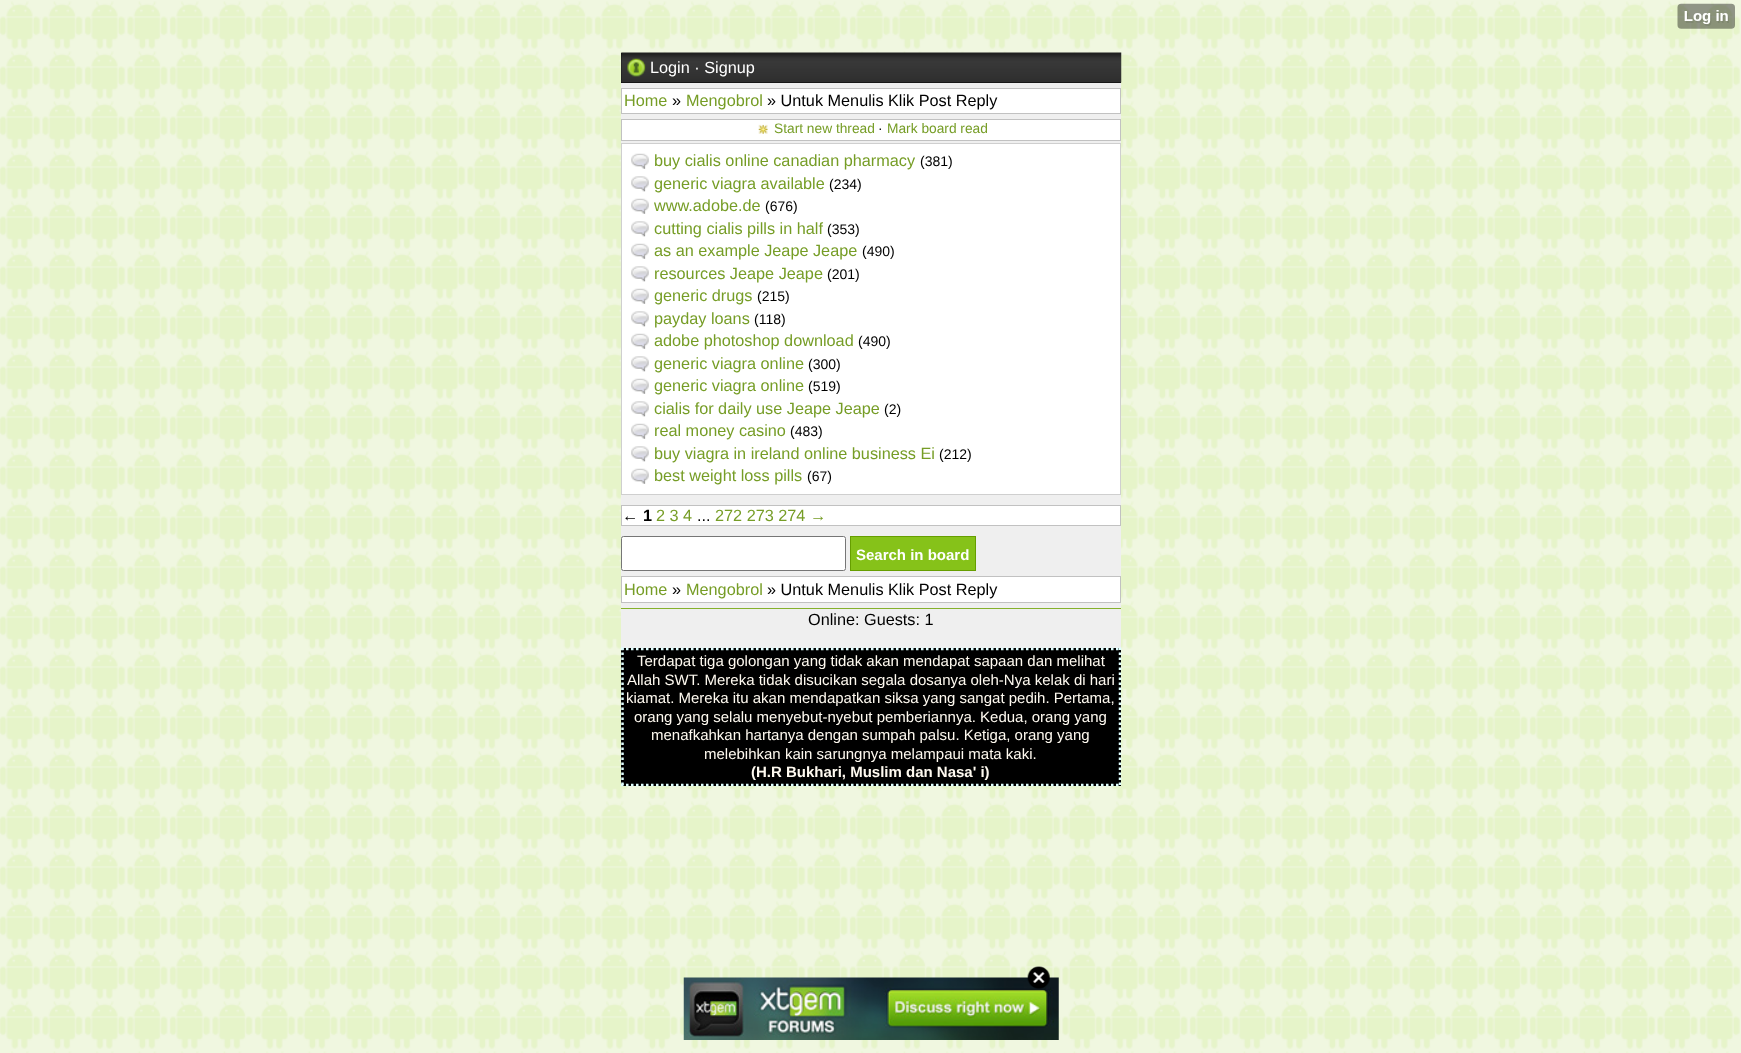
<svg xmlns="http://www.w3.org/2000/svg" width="1741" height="1053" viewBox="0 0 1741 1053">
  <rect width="100%" height="100%" fill="rgb(240,247,224)"/>
  <image x="0" y="1" width="1740" height="1052" href="pic1.png"/>
  <image x="1677" y="3" width="58" height="26" href="pic2.png"/>
  <rect x="621" y="83" width="500" height="565" fill="rgb(239,239,239)"/>
  <rect x="621" y="53" width="500" height="30" fill="rgb(0,0,0)"/>
  <image x="621" y="52" width="501" height="31" href="pic3.png"/>
  <image x="627" y="58" width="19" height="19" href="pic4.png"/>
  <text x="650" y="73" font-family="Liberation Sans" font-size="16.25" fill="rgb(255,255,255)">Login · Signup</text>
  <rect x="621.5" y="88.5" width="499" height="25" fill="rgb(255,255,255)" stroke="rgb(193,193,193)"/>
  <text x="624" y="106" font-family="Liberation Sans" font-size="16.25" fill="rgb(118,157,38)">Home</text>
  <text x="672" y="106" font-family="Liberation Sans" font-size="16.25" fill="rgb(0,0,0)">»</text>
  <text x="686" y="106" font-family="Liberation Sans" font-size="16.25" fill="rgb(118,157,38)">Mengobrol</text>
  <text x="767" y="106" font-family="Liberation Sans" font-size="16.25" fill="rgb(0,0,0)">» Untuk Menulis Klik Post Reply</text>
  <rect x="621.5" y="119.5" width="499" height="21" fill="rgb(255,255,255)" stroke="rgb(193,193,193)"/>
  <image x="758" y="124" width="10" height="10" href="pic5.png"/>
  <text x="774" y="133" font-family="Liberation Sans" font-size="13.75" fill="rgb(118,157,38)">Start new thread</text>
  <text x="878" y="133" font-family="Liberation Sans" font-size="13.75" fill="rgb(0,0,0)">·</text>
  <text x="887" y="133" font-family="Liberation Sans" font-size="13.75" fill="rgb(118,157,38)">Mark board read</text>
  <rect x="621.5" y="143.5" width="499" height="351" fill="rgb(255,255,255)" stroke="rgb(207,207,207)"/>
  <image x="631" y="153" width="18" height="16" href="pic6.png"/>
  <text x="654" y="166" font-family="Liberation Sans" font-size="16.25" fill="rgb(118,157,38)">buy cialis online canadian pharmacy</text>
  <text x="920" y="166" font-family="Liberation Sans" font-size="14" fill="rgb(0,0,0)">(381)</text>
  <image x="631" y="176" width="18" height="16" href="pic7.png"/>
  <text x="654" y="189" font-family="Liberation Sans" font-size="16.25" fill="rgb(118,157,38)">generic viagra available</text>
  <text x="829" y="189" font-family="Liberation Sans" font-size="14" fill="rgb(0,0,0)">(234)</text>
  <image x="631" y="198" width="18" height="16" href="pic6.png"/>
  <text x="654" y="211" font-family="Liberation Sans" font-size="16.25" fill="rgb(118,157,38)">www.adobe.de</text>
  <text x="765" y="211" font-family="Liberation Sans" font-size="14" fill="rgb(0,0,0)">(676)</text>
  <image x="631" y="221" width="18" height="16" href="pic7.png"/>
  <text x="654" y="234" font-family="Liberation Sans" font-size="16.25" fill="rgb(118,157,38)">cutting cialis pills in half</text>
  <text x="827" y="234" font-family="Liberation Sans" font-size="14" fill="rgb(0,0,0)">(353)</text>
  <image x="631" y="243" width="18" height="16" href="pic6.png"/>
  <text x="654" y="256" font-family="Liberation Sans" font-size="16.25" fill="rgb(118,157,38)">as an example Jeape Jeape</text>
  <text x="862" y="256" font-family="Liberation Sans" font-size="14" fill="rgb(0,0,0)">(490)</text>
  <image x="631" y="266" width="18" height="16" href="pic7.png"/>
  <text x="654" y="279" font-family="Liberation Sans" font-size="16.25" fill="rgb(118,157,38)">resources Jeape Jeape</text>
  <text x="827" y="279" font-family="Liberation Sans" font-size="14" fill="rgb(0,0,0)">(201)</text>
  <image x="631" y="288" width="18" height="16" href="pic8.png"/>
  <text x="654" y="301" font-family="Liberation Sans" font-size="16.25" fill="rgb(118,157,38)">generic drugs</text>
  <text x="757" y="301" font-family="Liberation Sans" font-size="14" fill="rgb(0,0,0)">(215)</text>
  <image x="631" y="311" width="18" height="16" href="pic7.png"/>
  <text x="654" y="324" font-family="Liberation Sans" font-size="16.25" fill="rgb(118,157,38)">payday loans</text>
  <text x="754" y="324" font-family="Liberation Sans" font-size="14" fill="rgb(0,0,0)">(118)</text>
  <image x="631" y="333" width="18" height="16" href="pic6.png"/>
  <text x="654" y="346" font-family="Liberation Sans" font-size="16.25" fill="rgb(118,157,38)">adobe photoshop download</text>
  <text x="858" y="346" font-family="Liberation Sans" font-size="14" fill="rgb(0,0,0)">(490)</text>
  <image x="631" y="356" width="18" height="16" href="pic7.png"/>
  <text x="654" y="369" font-family="Liberation Sans" font-size="16.25" fill="rgb(118,157,38)">generic viagra online</text>
  <text x="808" y="369" font-family="Liberation Sans" font-size="14" fill="rgb(0,0,0)">(300)</text>
  <image x="631" y="378" width="18" height="16" href="pic6.png"/>
  <text x="654" y="391" font-family="Liberation Sans" font-size="16.25" fill="rgb(118,157,38)">generic viagra online</text>
  <text x="808" y="391" font-family="Liberation Sans" font-size="14" fill="rgb(0,0,0)">(519)</text>
  <image x="631" y="401" width="18" height="16" href="pic7.png"/>
  <text x="654" y="414" font-family="Liberation Sans" font-size="16.25" fill="rgb(118,157,38)">cialis for daily use Jeape Jeape</text>
  <text x="884" y="414" font-family="Liberation Sans" font-size="14" fill="rgb(0,0,0)">(2)</text>
  <image x="631" y="423" width="18" height="16" href="pic6.png"/>
  <text x="654" y="436" font-family="Liberation Sans" font-size="16.25" fill="rgb(118,157,38)">real money casino</text>
  <text x="790" y="436" font-family="Liberation Sans" font-size="14" fill="rgb(0,0,0)">(483)</text>
  <image x="631" y="446" width="18" height="16" href="pic7.png"/>
  <text x="654" y="459" font-family="Liberation Sans" font-size="16.25" fill="rgb(118,157,38)">buy viagra in ireland online business Ei</text>
  <text x="939" y="459" font-family="Liberation Sans" font-size="14" fill="rgb(0,0,0)">(212)</text>
  <image x="631" y="468" width="18" height="16" href="pic6.png"/>
  <text x="654" y="481" font-family="Liberation Sans" font-size="16.25" fill="rgb(118,157,38)">best weight loss pills</text>
  <text x="807" y="481" font-family="Liberation Sans" font-size="14" fill="rgb(0,0,0)">(67)</text>
  <rect x="621.5" y="505.5" width="499" height="20" fill="rgb(255,255,255)" stroke="rgb(193,193,193)"/>
  <text x="622" y="521" font-family="Liberation Sans" font-size="16.25" fill="rgb(0,0,0)">←</text>
  <text x="643" y="521" font-family="Liberation Sans" font-size="16.25" font-weight="bold" fill="rgb(0,0,0)">1</text>
  <text x="656" y="521" font-family="Liberation Sans" font-size="16.25" fill="rgb(118,157,38)">2 3 4</text>
  <text x="697" y="521" font-family="Liberation Sans" font-size="16.25" fill="rgb(0,0,0)">...</text>
  <text x="715" y="521" font-family="Liberation Sans" font-size="16.25" fill="rgb(118,157,38)">272 273 274 →</text>
  <rect x="621.5" y="536.5" width="224" height="34" rx="2" fill="rgb(255,255,255)" stroke="rgb(118,118,118)"/>
  <rect x="850.5" y="536.5" width="125" height="34" fill="rgb(134,194,25)" stroke="rgb(102,158,0)"/>
  <text x="856" y="560" font-family="Liberation Sans" font-size="15" font-weight="bold" fill="rgb(255,255,255)">Search in board</text>
  <rect x="621.5" y="576.5" width="499" height="26" fill="rgb(255,255,255)" stroke="rgb(193,193,193)"/>
  <text x="624" y="595" font-family="Liberation Sans" font-size="16.25" fill="rgb(118,157,38)">Home</text>
  <text x="672" y="595" font-family="Liberation Sans" font-size="16.25" fill="rgb(0,0,0)">»</text>
  <text x="686" y="595" font-family="Liberation Sans" font-size="16.25" fill="rgb(118,157,38)">Mengobrol</text>
  <text x="767" y="595" font-family="Liberation Sans" font-size="16.25" fill="rgb(0,0,0)">» Untuk Menulis Klik Post Reply</text>
  <rect x="621" y="608" width="500" height="1" fill="rgb(133,177,43)"/>
  <text x="808" y="625" font-family="Liberation Sans" font-size="16.25" fill="rgb(0,0,0)">Online: Guests: 1</text>
  <rect x="621" y="648" width="500" height="138" fill="rgb(0,0,0)"/>
  <path d="M621 649H1121" fill="none" stroke="rgb(224,255,255)" stroke-width="2.5" stroke-dasharray="2.5 2.5"/>
  <path d="M1120 647.5V786" fill="none" stroke="rgb(224,255,255)" stroke-width="2.5" stroke-dasharray="2.5 2.5"/>
  <path d="M621 785H1121" fill="none" stroke="rgb(224,255,255)" stroke-width="2.5" stroke-dasharray="2.5 2.5"/>
  <path d="M622.5 647.5V786" fill="none" stroke="rgb(224,255,255)" stroke-width="2.5" stroke-dasharray="2.5 2.5"/>
  <g font-family="Liberation Sans" font-size="15" fill="rgb(255,250,240)">
    <text x="637" y="666">Terdapat tiga golongan yang tidak akan mendapat sapaan dan melihat</text>
    <text x="627" y="685">Allah SWT. Mereka tidak disucikan segala dosanya oleh-Nya kelak di hari</text>
    <text x="626" y="703">kiamat. Mereka itu akan mendapatkan siksa yang sangat pedih. Pertama,</text>
    <text x="634" y="722">orang yang selalu menyebut-nyebut pemberiannya. Kedua, orang yang</text>
    <text x="651" y="740">menafkahkan hartanya dengan sumpah palsu. Ketiga, orang yang</text>
    <text x="704" y="759">melebihkan kain sarungnya melampaui mata kaki.</text>
  </g>
  <text x="751" y="777" font-family="Liberation Sans" font-size="15" font-weight="bold" fill="rgb(255,250,240)">(H.R Bukhari, Muslim dan Nasa' i)</text>
  <image x="683" y="977" width="376" height="63" href="pic10.png"/>
  <image x="1027" y="966" width="23" height="23" href="pic9.png"/>
</svg>
